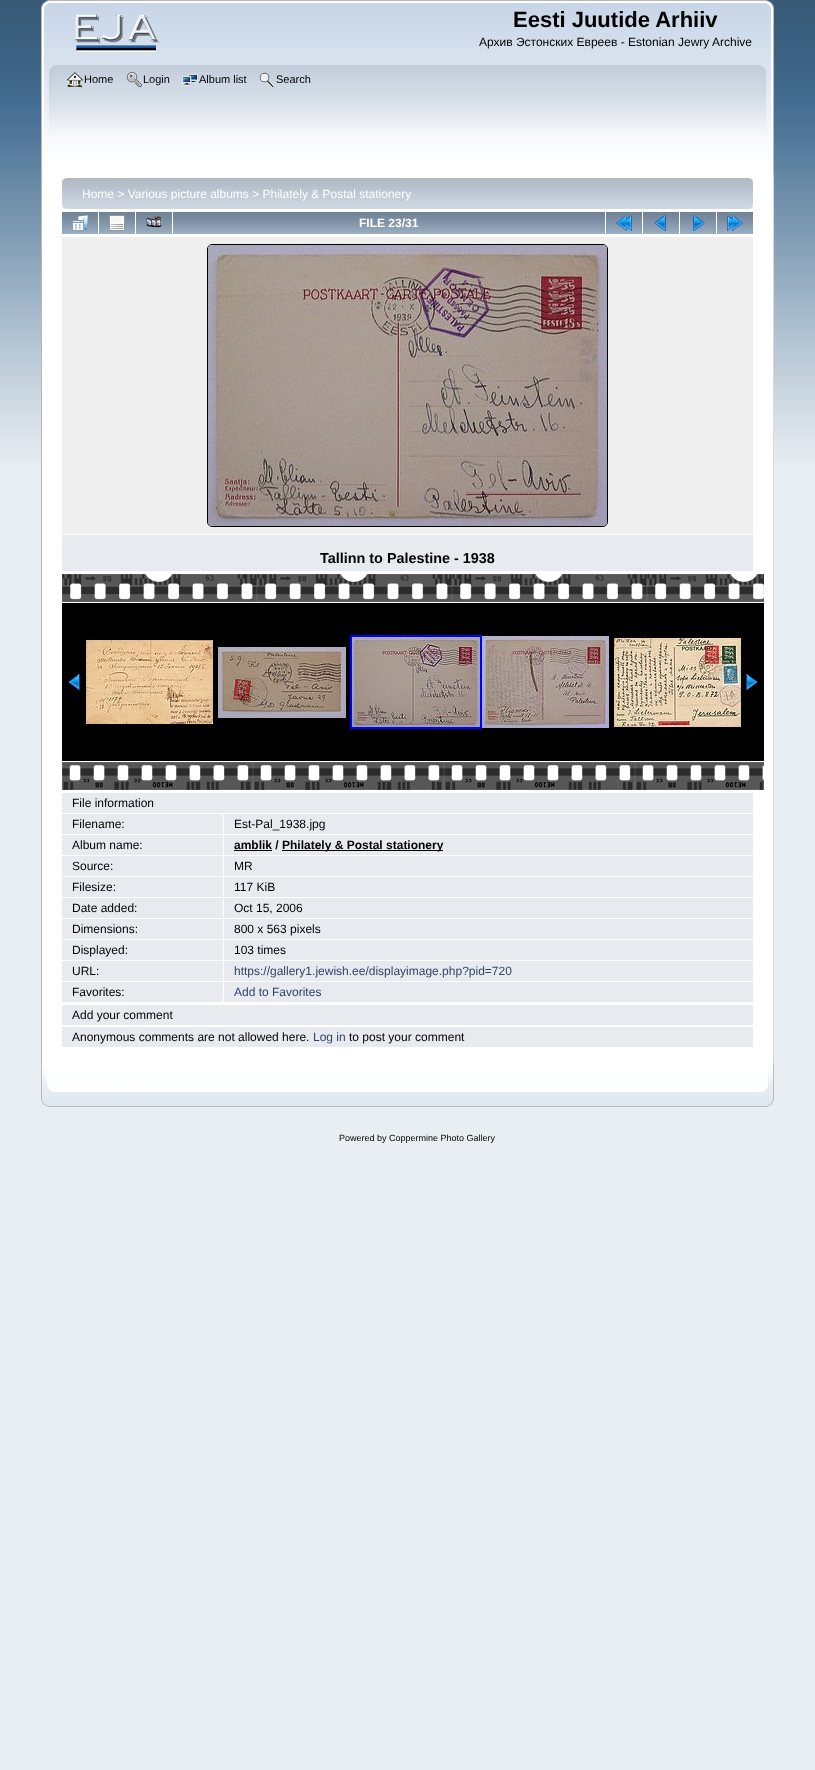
<svg xmlns="http://www.w3.org/2000/svg" width="815" height="1770" viewBox="0 0 815 1770">
  <rect width="100%" height="100%" fill="rgb(233,238,242)"/>
  <image x="0" y="0" width="815" height="462" href="pic1.png"/>
  <image x="41" y="0" width="725" height="65" href="pic2.png"/>
  <image x="766" y="0" width="8" height="65" href="pic3.png"/>
  <image x="73" y="13" width="87" height="39" href="pic4.png"/>
  <text x="513" y="27" font-family="Liberation Sans" font-size="22" font-weight="bold" fill="rgb(0,0,0)">Eesti Juutide Arhiiv</text>
  <text x="479" y="46" font-family="Liberation Sans" font-size="12" fill="rgb(0,0,0)">Архив Эстонских Евреев - Estonian Jewry Archive</text>
  <image x="41" y="65" width="719" height="110" href="pic5.png"/>
  <image x="760" y="65" width="14" height="110" href="pic6.png"/>
  <image x="67" y="72" width="16" height="16" href="pic7.png"/>
  <text x="84" y="83" font-family="Liberation Sans" font-size="11" fill="rgb(0,0,0)">Home</text>
  <image x="127" y="72" width="15" height="15" href="pic8.png"/>
  <text x="143" y="83" font-family="Liberation Sans" font-size="11" fill="rgb(0,0,0)">Login</text>
  <image x="182" y="74" width="16" height="12" href="pic9.png"/>
  <text x="199" y="83" font-family="Liberation Sans" font-size="11" fill="rgb(0,0,0)">Album list</text>
  <image x="259" y="72" width="16" height="15" href="pic10.png"/>
  <text x="276" y="83" font-family="Liberation Sans" font-size="11" fill="rgb(0,0,0)">Search</text>
  <rect x="42" y="175" width="731" height="888" fill="rgb(255,255,255)"/>
  <rect x="41" y="175" width="1" height="888" fill="rgb(183,183,183)"/>
  <rect x="773" y="175" width="1" height="888" fill="rgb(219,219,219)"/>
  <image x="62" y="178" width="687" height="31" href="pic11.png"/>
  <image x="749" y="178" width="4" height="31" href="pic12.png"/>
  <text x="82" y="198" font-family="Liberation Sans" font-size="12" fill="rgb(255,255,255)">Home &gt; Various picture albums &gt; Philately &amp; Postal stationery</text>
  <image x="62" y="212" width="36" height="22" href="pic13.png"/>
  <image x="72" y="215" width="16" height="16" href="pic14.png"/>
  <image x="99" y="212" width="36" height="22" href="pic13.png"/>
  <image x="109" y="215" width="16" height="16" href="pic15.png"/>
  <image x="136" y="212" width="36" height="22" href="pic13.png"/>
  <image x="146" y="216" width="16" height="12" href="pic16.png"/>
  <image x="173" y="212" width="432" height="22" href="pic17.png"/>
  <text x="359" y="227" font-family="Liberation Sans" font-size="12" font-weight="bold" fill="rgb(255,255,255)">FILE 23/31</text>
  <image x="606" y="212" width="36" height="22" href="pic13.png"/>
  <image x="616" y="215" width="16" height="16" href="pic18.png"/>
  <image x="643" y="212" width="36" height="22" href="pic13.png"/>
  <image x="654" y="215" width="12" height="16" href="pic19.png"/>
  <image x="680" y="212" width="36" height="22" href="pic13.png"/>
  <image x="693" y="215" width="12" height="16" href="pic20.png"/>
  <image x="717" y="212" width="36" height="22" href="pic13.png"/>
  <image x="727" y="215" width="16" height="16" href="pic21.png"/>
  <rect x="62" y="237" width="691" height="297" fill="rgb(239,239,239)"/>
  <rect x="207.5" y="244.5" width="400" height="282" rx="4.5" fill="none" stroke="rgb(0,0,0)"/>
  <image x="208" y="245" width="399" height="281" href="pic22.png"/>
  <rect x="62" y="535" width="691" height="36" fill="rgb(231,234,239)"/>
  <text x="320" y="563" font-family="Liberation Sans" font-size="14.4" font-weight="bold" fill="rgb(0,0,0)">Tallinn to Palestine - 1938</text>
  <image x="62" y="574" width="702" height="28" href="pic23.png"/>
  <rect x="62" y="603" width="702" height="158" fill="rgb(0,0,0)"/>
  <image x="68" y="674" width="12" height="16" href="pic24.png"/>
  <image x="86" y="640" width="127" height="84" href="pic25.png"/>
  <image x="218" y="647" width="128" height="71" href="pic26.png"/>
  <rect x="351" y="636" width="130" height="92" fill="none" stroke="rgb(0,0,255)" stroke-width="2"/>
  <image x="352" y="637" width="128" height="90" href="pic27.png"/>
  <image x="482" y="636" width="127" height="92" href="pic28.png"/>
  <image x="614" y="638" width="127" height="89" href="pic29.png"/>
  <image x="746" y="674" width="12" height="16" href="pic30.png"/>
  <image x="62" y="762" width="702" height="28" href="pic31.png"/>
  <rect x="62" y="793" width="691" height="20" fill="rgb(231,234,239)"/>
  <text x="72" y="807" font-family="Liberation Sans" font-size="12" fill="rgb(0,0,0)">File information</text>
  <rect x="62" y="814" width="161" height="20" fill="rgb(231,234,239)"/>
  <text x="72" y="828" font-family="Liberation Sans" font-size="12" fill="rgb(0,0,0)">Filename:</text>
  <rect x="224" y="814" width="529" height="20" fill="rgb(231,234,239)"/>
  <text x="234" y="828" font-family="Liberation Sans" font-size="12" fill="rgb(0,0,0)">Est-Pal_1938.jpg</text>
  <rect x="62" y="835" width="161" height="20" fill="rgb(231,234,239)"/>
  <text x="72" y="849" font-family="Liberation Sans" font-size="12" fill="rgb(0,0,0)">Album name:</text>
  <rect x="224" y="835" width="529" height="20" fill="rgb(231,234,239)"/>
  <text x="234" y="849" font-family="Liberation Sans" font-size="12" font-weight="bold" fill="rgb(0,0,0)">amblik /</text>
  <rect x="234" y="850" width="38" height="1" fill="rgb(0,0,0)"/>
  <rect x="282" y="850" width="161" height="1" fill="rgb(0,0,0)"/>
  <text x="282" y="849" font-family="Liberation Sans" font-size="12" font-weight="bold" fill="rgb(0,0,0)">Philately &amp; Postal stationery</text>
  <rect x="62" y="856" width="161" height="20" fill="rgb(231,234,239)"/>
  <text x="72" y="870" font-family="Liberation Sans" font-size="12" fill="rgb(0,0,0)">Source:</text>
  <rect x="224" y="856" width="529" height="20" fill="rgb(231,234,239)"/>
  <text x="234" y="870" font-family="Liberation Sans" font-size="12" fill="rgb(0,0,0)">MR</text>
  <rect x="62" y="877" width="161" height="20" fill="rgb(231,234,239)"/>
  <text x="72" y="891" font-family="Liberation Sans" font-size="12" fill="rgb(0,0,0)">Filesize:</text>
  <rect x="224" y="877" width="529" height="20" fill="rgb(231,234,239)"/>
  <text x="234" y="891" font-family="Liberation Sans" font-size="12" fill="rgb(0,0,0)">117 KiB</text>
  <rect x="62" y="898" width="161" height="20" fill="rgb(231,234,239)"/>
  <text x="72" y="912" font-family="Liberation Sans" font-size="12" fill="rgb(0,0,0)">Date added:</text>
  <rect x="224" y="898" width="529" height="20" fill="rgb(231,234,239)"/>
  <text x="234" y="912" font-family="Liberation Sans" font-size="12" fill="rgb(0,0,0)">Oct 15, 2006</text>
  <rect x="62" y="919" width="161" height="20" fill="rgb(231,234,239)"/>
  <text x="72" y="933" font-family="Liberation Sans" font-size="12" fill="rgb(0,0,0)">Dimensions:</text>
  <rect x="224" y="919" width="529" height="20" fill="rgb(231,234,239)"/>
  <text x="234" y="933" font-family="Liberation Sans" font-size="12" fill="rgb(0,0,0)">800 x 563 pixels</text>
  <rect x="62" y="940" width="161" height="20" fill="rgb(231,234,239)"/>
  <text x="72" y="954" font-family="Liberation Sans" font-size="12" fill="rgb(0,0,0)">Displayed:</text>
  <rect x="224" y="940" width="529" height="20" fill="rgb(231,234,239)"/>
  <text x="234" y="954" font-family="Liberation Sans" font-size="12" fill="rgb(0,0,0)">103 times</text>
  <rect x="62" y="961" width="161" height="20" fill="rgb(231,234,239)"/>
  <text x="72" y="975" font-family="Liberation Sans" font-size="12" fill="rgb(0,0,0)">URL:</text>
  <rect x="224" y="961" width="529" height="20" fill="rgb(231,234,239)"/>
  <text x="234" y="975" font-family="Liberation Sans" font-size="12" fill="rgb(51,68,102)">https://gallery1.jewish.ee/displayimage.php?pid=720</text>
  <rect x="62" y="982" width="161" height="20" fill="rgb(231,234,239)"/>
  <text x="72" y="996" font-family="Liberation Sans" font-size="12" fill="rgb(0,0,0)">Favorites:</text>
  <rect x="224" y="982" width="529" height="20" fill="rgb(231,234,239)"/>
  <text x="234" y="996" font-family="Liberation Sans" font-size="12" fill="rgb(51,68,102)">Add to Favorites</text>
  <rect x="62" y="1005" width="691" height="20" fill="rgb(231,234,239)"/>
  <text x="72" y="1019" font-family="Liberation Sans" font-size="12" fill="rgb(0,0,0)">Add your comment</text>
  <rect x="62" y="1027" width="691" height="20" fill="rgb(231,234,239)"/>
  <text x="72" y="1041" font-family="Liberation Sans" font-size="12" fill="rgb(0,0,0)">Anonymous comments are not allowed here.</text>
  <text x="313" y="1041" font-family="Liberation Sans" font-size="12" fill="rgb(51,68,102)">Log in</text>
  <text x="349" y="1041" font-family="Liberation Sans" font-size="12" fill="rgb(0,0,0)">to post your comment</text>
  <image x="41" y="1063" width="720" height="44" href="pic32.png"/>
  <image x="761" y="1063" width="13" height="44" href="pic33.png"/>
  <text x="339" y="1141" font-family="Liberation Sans" font-size="9" fill="rgb(0,0,0)">Powered by Coppermine Photo Gallery</text>
</svg>
